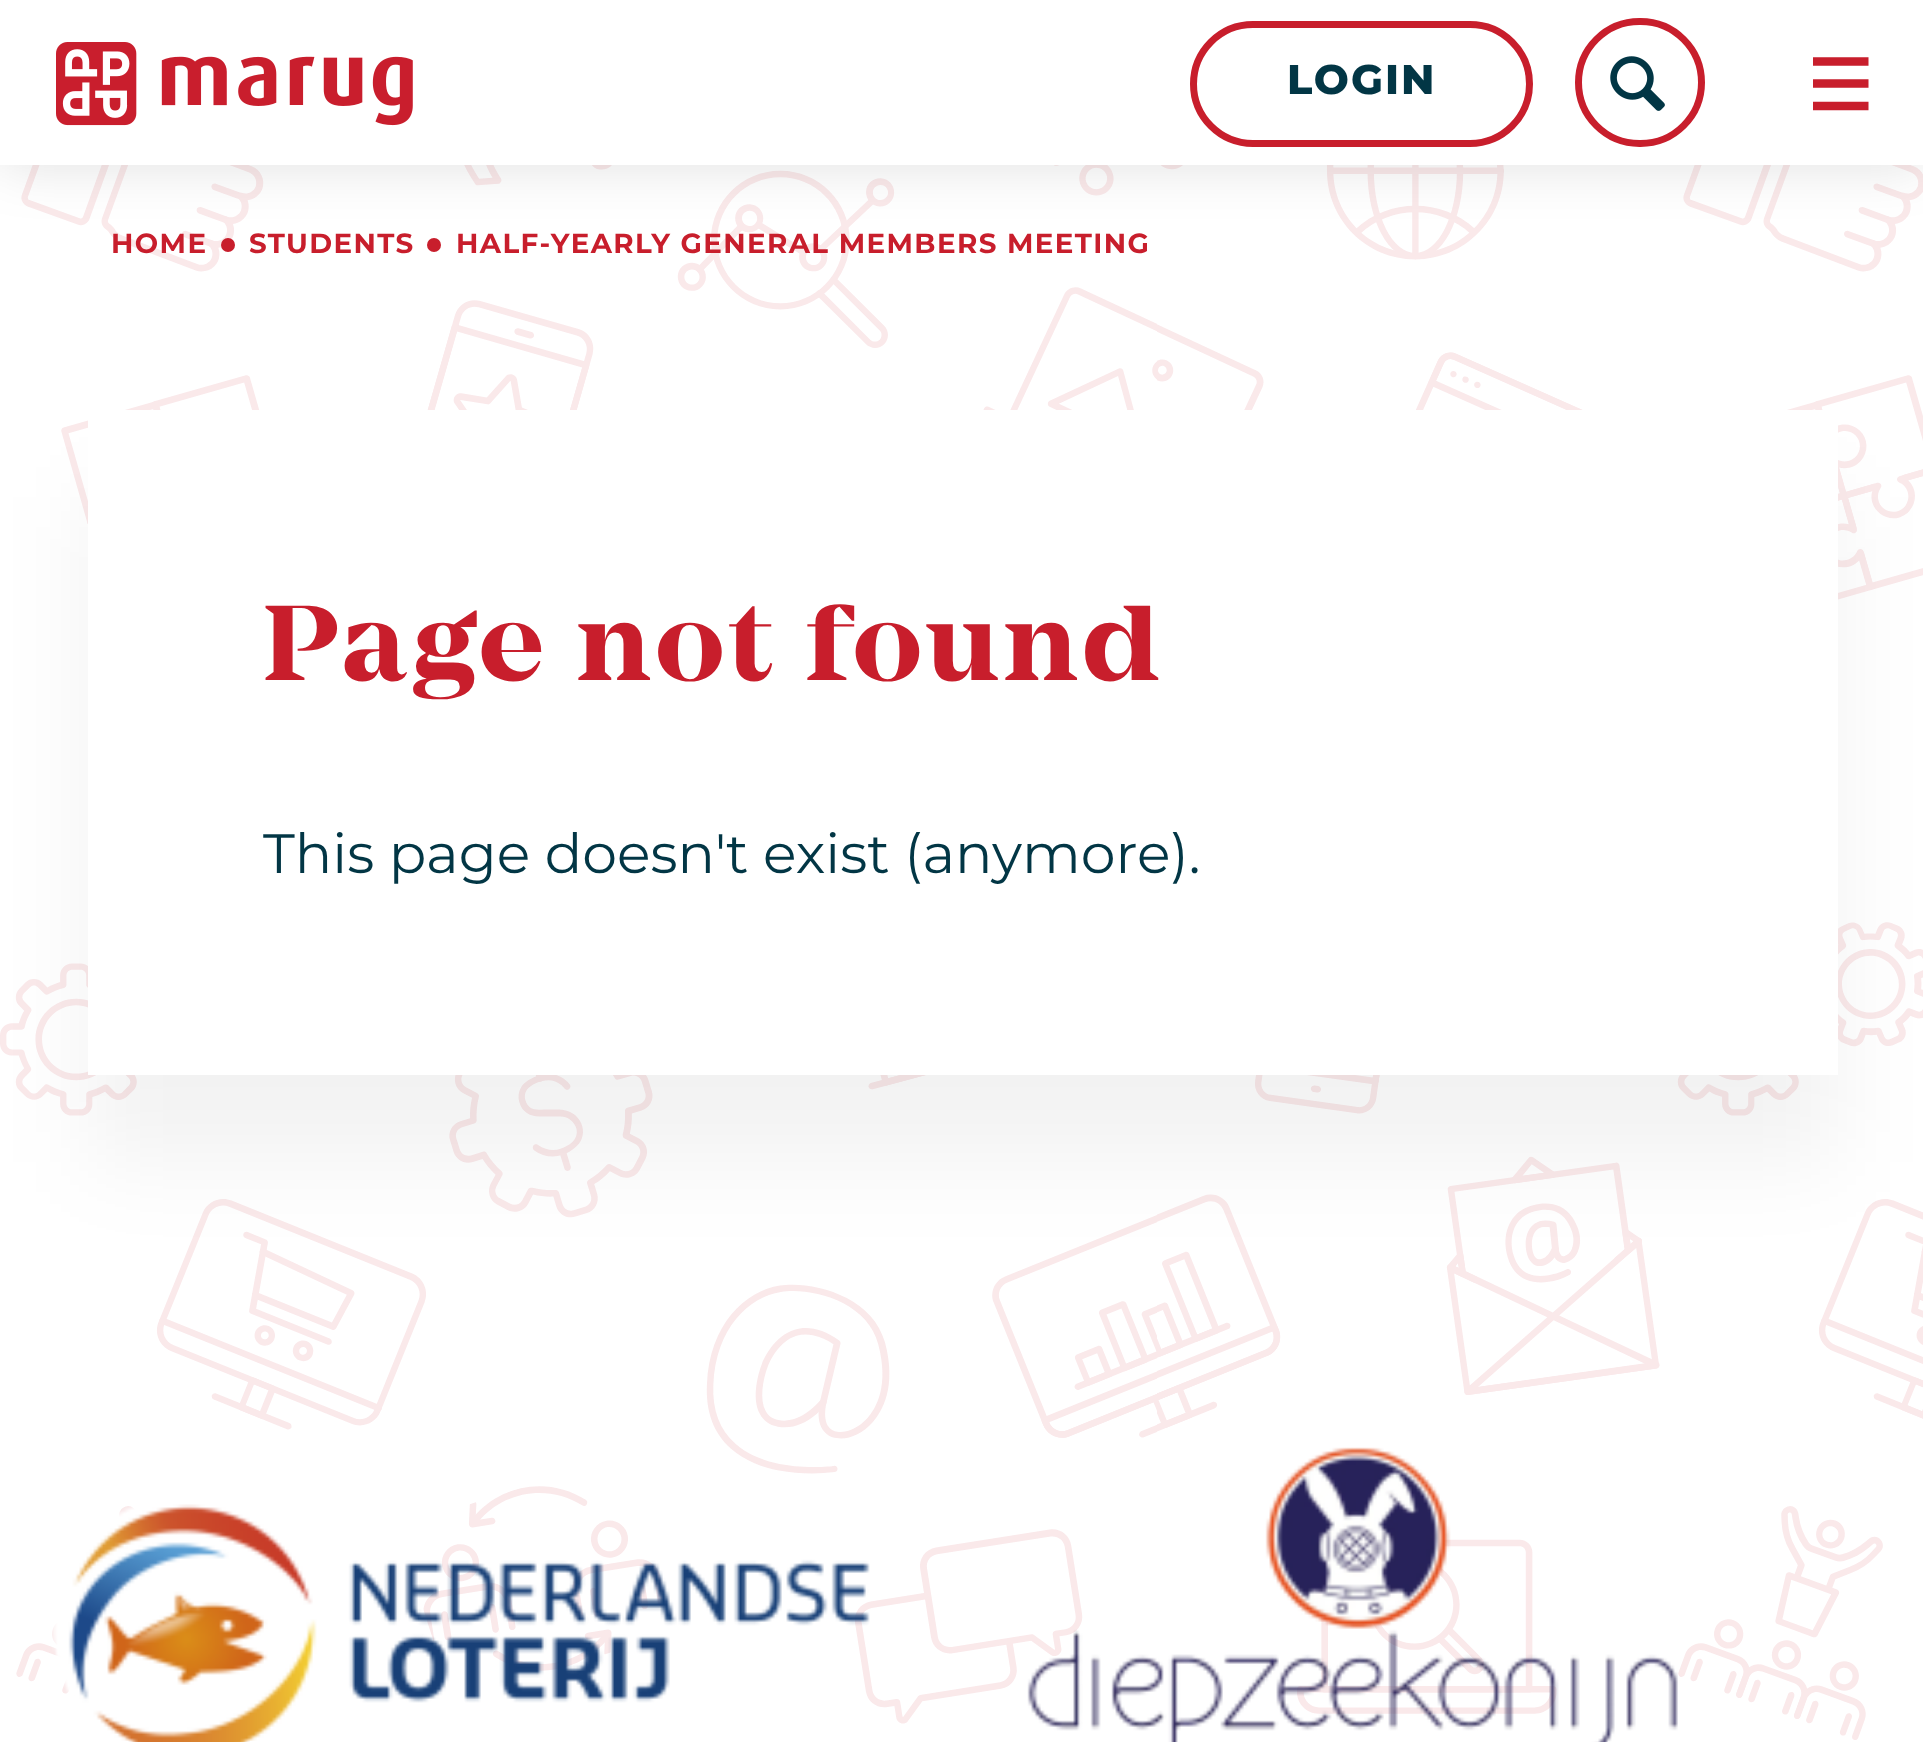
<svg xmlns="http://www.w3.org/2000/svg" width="1923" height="1742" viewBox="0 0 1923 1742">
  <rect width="100%" height="100%" fill="rgb(255,255,255)"/>
  <image x="0" y="165" width="1923" height="1575" href="pic3.png"/>
  <circle cx="228" cy="245" r="7" fill="rgb(200,30,44)"/>
  <circle cx="434" cy="245" r="7" fill="rgb(200,30,44)"/>
  <rect x="0" y="0" width="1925" height="165" fill="rgba(0,0,0,0.12)" filter="blur(27.5px)"/>
  <rect x="0" y="0" width="1923" height="165" fill="rgb(255,255,255)"/>
  <image x="56" y="42" width="357" height="84" href="pic1.png"/>
  <rect x="1193.5" y="24.5" width="336" height="119" rx="59.5" fill="none" stroke="rgb(200,30,44)" stroke-width="7"/>
  <text x="1287" y="94" font-family="'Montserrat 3'" font-size="41.5" font-weight="100" letter-spacing="2" fill="rgb(2,54,69)">LOGIN</text>
  <rect x="1578.5" y="21.5" width="123" height="122" rx="61" fill="none" stroke="rgb(200,30,44)" stroke-width="7"/>
  <image x="1610" y="56" width="55" height="55" href="pic2.png"/>
  <path d="M1813 61.5H1868.5M1813 83.5H1868.5M1813 106H1868.5" fill="none" stroke="rgb(200,30,44)" stroke-width="8.3"/>
  <g font-family="'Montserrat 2'" font-size="27.7" font-weight="100" letter-spacing="1.4" fill="rgb(200,30,44)">
    <text x="111" y="253">HOME</text>
    <text x="249" y="253">STUDENTS</text>
    <text x="456" y="253">HALF-YEARLY GENERAL MEMBERS MEETING</text>
  </g>
  <rect x="88" y="497" width="1750" height="665" fill="rgba(0,0,0,0.05)" filter="blur(44.5px)"/>
  <rect x="88" y="410" width="1750" height="665" fill="rgb(255,255,255)"/>
  <text x="263" y="680" font-family="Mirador" font-size="110.75" font-weight="bold" letter-spacing="3.75" fill="rgb(200,30,44)">Page not found</text>
  <text x="263" y="873" font-family="Montserrat" font-size="55.4" font-weight="100" fill="rgb(2,54,69)">This page doesn't exist (anymore).</text>
  <image x="52" y="1504" width="818" height="238" href="pic4.png"/>
  <image x="1027" y="1447" width="651" height="295" href="pic5.png"/>
</svg>
